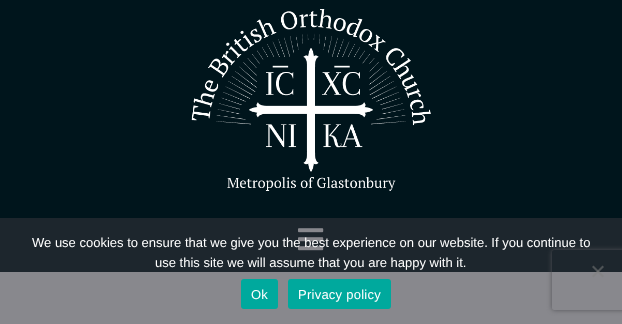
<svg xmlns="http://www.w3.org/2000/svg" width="622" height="324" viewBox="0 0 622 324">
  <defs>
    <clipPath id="clip1"><path d="M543 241H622V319H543ZM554 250H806C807 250 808 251 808 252V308C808 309 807 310 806 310H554C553 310 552 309 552 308V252C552 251 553 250 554 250Z" clip-rule="evenodd"/></clipPath>
  </defs>
  <rect width="100%" height="100%" fill="rgb(136,136,141)"/>
  <rect x="0" y="0" width="622" height="218" fill="rgb(0,21,28)"/>
  <rect x="0" y="218" width="622" height="54" fill="rgb(29,38,45)"/>
  <image x="191" y="9" width="240" height="182" href="pic1.png"/>
  <image x="298" y="228" width="26" height="23" href="pic2.png"/>
  <g clip-path="url(#clip1)">
    <rect x="552" y="250" width="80" height="60" rx="2" fill="rgb(83,83,87)" filter="blur(2.5px)"/>
  </g>
  <g font-family="Liberation Sans" font-size="13" fill="rgb(255,255,255)">
    <text x="32" y="247">We use cookies to ensure that we give you the best experience on our website. If you continue to</text>
    <text x="155" y="267">use this site we will assume that you are happy with it.</text>
  </g>
  <path d="M602.5 265.5L604 267L593.5 277.5L592 276Z" fill="rgba(128,128,128,0.5)"/>
  <path d="M592 267L593.5 265.5L604 276L602.5 277.5Z" fill="rgba(128,128,128,0.5)"/>
  <rect x="241" y="279" width="37" height="30" rx="3" fill="rgb(0,169,157)"/>
  <text x="251" y="299" font-family="Liberation Sans" font-size="13" letter-spacing="0.25" fill="rgb(255,255,255)">Ok</text>
  <rect x="288" y="279" width="103" height="30" rx="3" fill="rgb(0,169,157)"/>
  <text x="298" y="299" font-family="Liberation Sans" font-size="13" letter-spacing="0.25" fill="rgb(255,255,255)">Privacy policy</text>
</svg>
